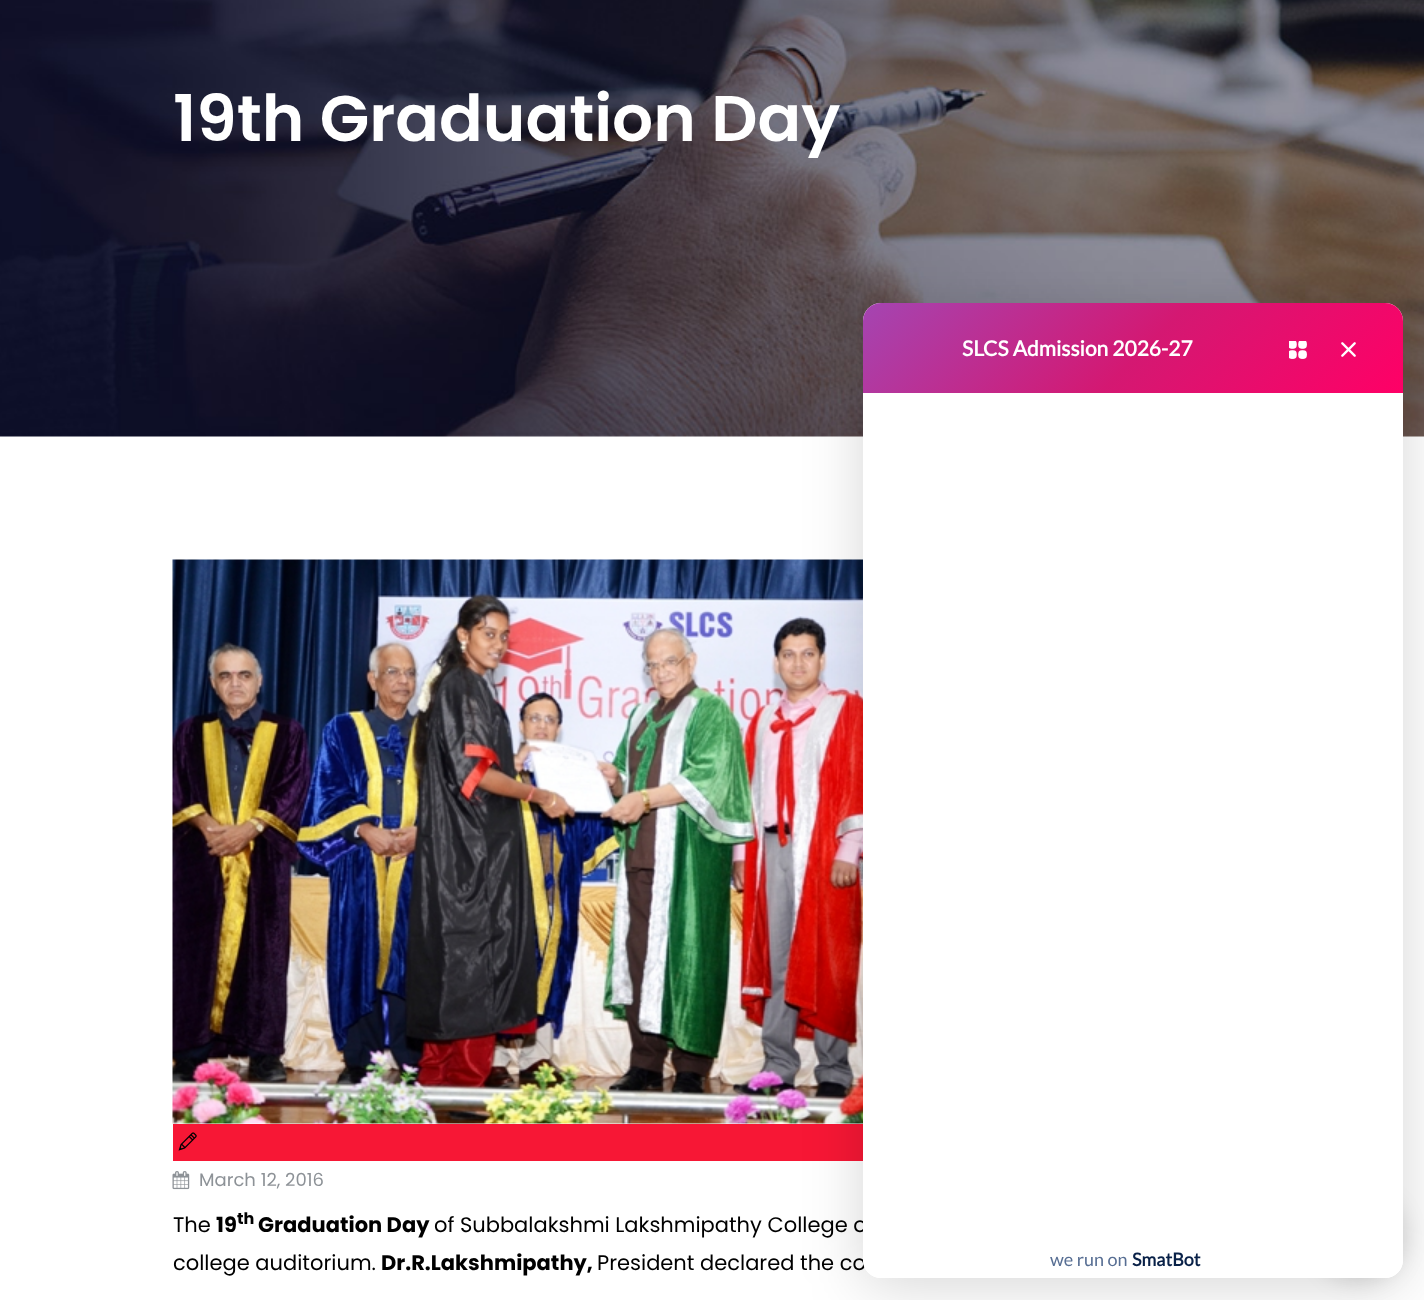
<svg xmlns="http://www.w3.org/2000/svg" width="1424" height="1300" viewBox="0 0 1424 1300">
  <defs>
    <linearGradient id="g1" gradientUnits="userSpaceOnUse" x1="975" y1="190" x2="1290" y2="506"><stop offset="0" stop-color="rgb(164,69,178)"/><stop offset="0.52" stop-color="rgb(212,24,114)"/><stop offset="1" stop-color="rgb(255,0,102)"/></linearGradient>
    <clipPath id="clip1"><rect x="863" y="303" width="540" height="975" rx="18"/></clipPath>
  </defs>
  <rect width="100%" height="100%" fill="rgb(255,255,255)"/>
  <image x="0" y="0" width="1424" height="437" href="pic1.png"/>
  <text x="173" y="141" font-family="Poppins" font-size="64.5" font-weight="600" fill="rgb(255,255,255)">19th Graduation Day</text>
  <image x="172" y="559" width="691" height="565" href="pic2.png"/>
  <rect x="173" y="1124" width="690" height="37" fill="rgb(247,23,53)"/>
  <image x="178" y="1132" width="19" height="19" href="pic3.png"/>
  <image x="172" y="1171" width="18" height="19" href="pic4.png"/>
  <text x="199" y="1186" font-family="Poppins" font-size="18" fill="rgb(141,146,151)">March 12, 2016</text>
  <text x="173" y="1232" font-family="Poppins" font-size="21" fill="rgb(0,0,0)">The</text>
  <text x="216" y="1232" font-family="Poppins" font-size="21" font-weight="bold" fill="rgb(0,0,0)">19</text>
  <text x="237" y="1224" font-family="Poppins" font-size="16" font-weight="bold" fill="rgb(0,0,0)">th</text>
  <text x="258" y="1232" font-family="Poppins" font-size="21" font-weight="bold" fill="rgb(0,0,0)">Graduation Day</text>
  <g font-family="Poppins" font-size="21" fill="rgb(0,0,0)">
    <text x="434" y="1232">of Subbalakshmi Lakshmipathy College o</text>
    <text x="173" y="1270">college auditorium.</text>
  </g>
  <text x="381" y="1270" font-family="Poppins" font-size="21" font-weight="bold" fill="rgb(0,0,0)">Dr.R.Lakshmipathy,</text>
  <text x="597" y="1270" font-family="Poppins" font-size="21" fill="rgb(0,0,0)">President declared the co</text>
  <rect x="863" y="311" width="540" height="975" rx="18" fill="rgba(0,0,0,0.16)" filter="blur(30px)"/>
  <rect x="1317" y="1194" width="86" height="86" rx="43" fill="rgba(0,0,0,0.15)" filter="blur(12px)"/>
  <rect x="863" y="303" width="540" height="975" rx="18" fill="rgb(255,255,255)"/>
  <path d="M881 303H1385C1395 303 1403 311 1403 321V393H863V321C863 311 871 303 881 303Z" fill="url(#g1)"/>
  <text x="962" y="356" font-family="Lato" font-size="21" font-weight="bold" fill="rgb(255,255,255)">SLCS Admission 2026-27</text>
  <image x="1289" y="341" width="18" height="18" href="pic5.png"/>
  <image x="1341" y="342" width="15" height="15" href="pic6.png"/>
  <g clip-path="url(#clip1)">
    <path d="M863 1235H1403V1271C1403 1281 1395 1289 1385 1289H881C871 1289 863 1281 863 1271Z" fill="rgb(255,255,255)"/>
  </g>
  <text x="1050" y="1266" font-family="Lato" font-size="18" fill="rgb(87,110,147)">we run on</text>
  <text x="1132" y="1266" font-family="Lato" font-size="18" font-weight="bold" fill="rgb(9,33,72)">SmatBot</text>
</svg>
